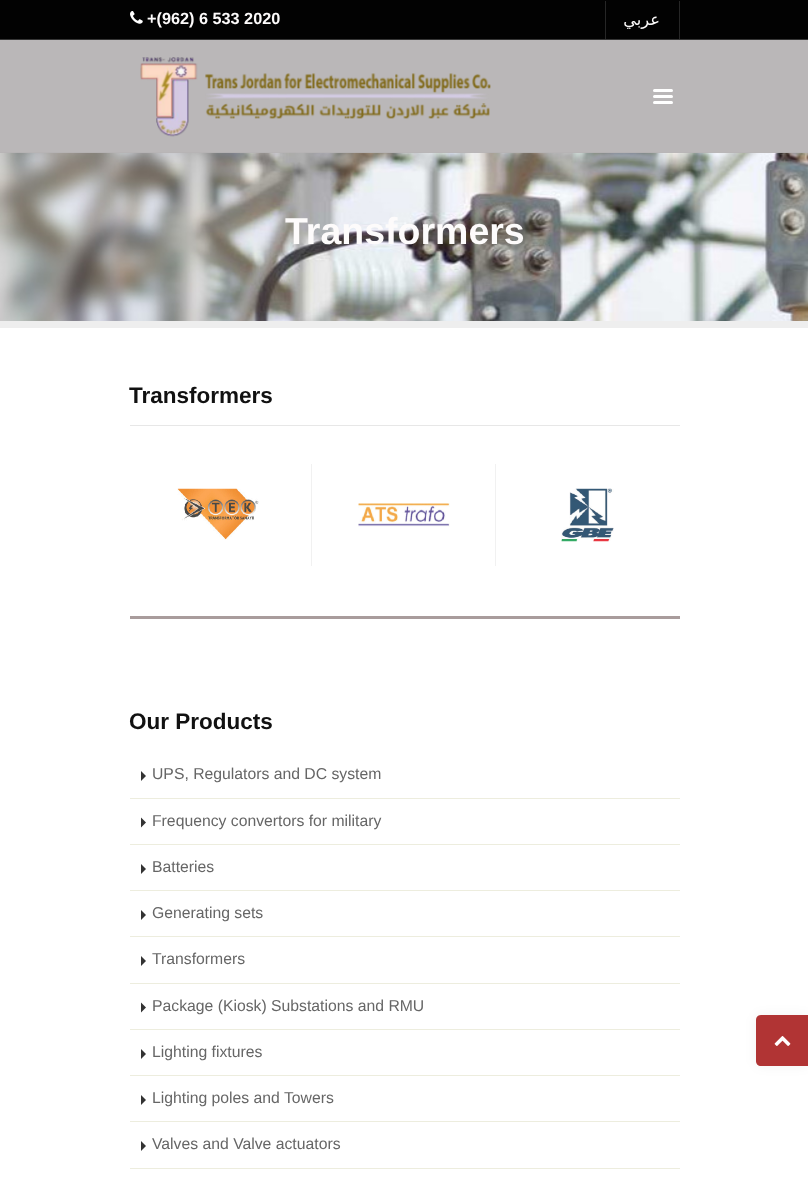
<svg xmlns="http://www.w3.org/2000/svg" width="808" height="1203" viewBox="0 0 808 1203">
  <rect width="100%" height="100%" fill="rgb(255,255,255)"/>
  <rect x="0" y="0" width="808" height="39" fill="rgb(2,2,2)"/>
  <rect x="0" y="39" width="808" height="1" fill="rgb(53,53,53)"/>
  <image x="130" y="11" width="13" height="13" href="pic1.png"/>
  <text x="147" y="24" font-family="Liberation Sans" font-size="16.25" font-weight="bold" fill="rgb(253,251,251)">+(962) 6 533 2020</text>
  <rect x="679" y="1" width="1" height="38" fill="rgb(38,38,38)"/>
  <rect x="605" y="1" width="1" height="38" fill="rgb(38,38,38)"/>
  <text x="660" y="25" font-family="DejaVu Sans" font-size="16.25" direction="rtl" fill="rgb(253,251,251)">عربي</text>
  <image x="0" y="152" width="808" height="169" href="pic3.png"/>
  <rect x="0" y="40" width="808" height="113" fill="rgba(179,176,177,0.91)"/>
  <image x="140" y="57" width="351" height="80" href="pic2.png"/>
  <rect x="653" y="95" width="20" height="3" rx="1.5" fill="rgb(255,255,255)"/>
  <rect x="653" y="89" width="20" height="3" rx="1.5" fill="rgb(255,255,255)"/>
  <rect x="653" y="101" width="20" height="3" rx="1.5" fill="rgb(255,255,255)"/>
  <rect x="0" y="321" width="808" height="7" fill="rgb(238,238,238)"/>
  <text x="285" y="244" font-family="Liberation Sans" font-size="37.5" font-weight="bold" fill="rgb(253,251,251)">Transformers</text>
  <rect x="130" y="425" width="550" height="1" fill="rgb(231,231,231)"/>
  <text x="129" y="403" font-family="Liberation Sans" font-size="22.5" font-weight="bold" fill="rgb(17,17,17)">Transformers</text>
  <image x="177" y="488" width="82" height="52" href="pic4.png"/>
  <rect x="311" y="464" width="1" height="102" fill="rgb(241,241,241)"/>
  <image x="358" y="503" width="92" height="24" href="pic5.png"/>
  <rect x="495" y="464" width="1" height="102" fill="rgb(241,241,241)"/>
  <image x="561" y="488" width="53" height="54" href="pic6.png"/>
  <rect x="130" y="616" width="550" height="3" fill="rgb(169,156,156)"/>
  <text x="129" y="729" font-family="Liberation Sans" font-size="22.5" font-weight="bold" fill="rgb(17,17,17)">Our Products</text>
  <rect x="130" y="798" width="550" height="1" fill="rgb(237,237,222)"/>
  <path d="M141 781V771L146 776Z" fill="rgb(51,51,51)"/>
  <text x="152" y="779" font-family="Liberation Sans" font-size="15.75" fill="rgb(102,102,102)">UPS, Regulators and DC system</text>
  <rect x="130" y="844" width="550" height="1" fill="rgb(237,237,222)"/>
  <path d="M141 827.5V817.5L146 822.5Z" fill="rgb(51,51,51)"/>
  <text x="152" y="826" font-family="Liberation Sans" font-size="15.75" fill="rgb(102,102,102)">Frequency convertors for military</text>
  <rect x="130" y="890" width="550" height="1" fill="rgb(237,237,222)"/>
  <path d="M141 874V864L146 869Z" fill="rgb(51,51,51)"/>
  <text x="152" y="872" font-family="Liberation Sans" font-size="15.75" fill="rgb(102,102,102)">Batteries</text>
  <rect x="130" y="936" width="550" height="1" fill="rgb(237,237,222)"/>
  <path d="M141 920V910L146 915Z" fill="rgb(51,51,51)"/>
  <text x="152" y="918" font-family="Liberation Sans" font-size="15.75" fill="rgb(102,102,102)">Generating sets</text>
  <rect x="130" y="983" width="550" height="1" fill="rgb(237,237,222)"/>
  <path d="M141 966V956L146 961Z" fill="rgb(51,51,51)"/>
  <text x="152" y="964" font-family="Liberation Sans" font-size="15.75" fill="rgb(102,102,102)">Transformers</text>
  <rect x="130" y="1029" width="550" height="1" fill="rgb(237,237,222)"/>
  <path d="M141 1012.5V1002.5L146 1007.5Z" fill="rgb(51,51,51)"/>
  <text x="152" y="1011" font-family="Liberation Sans" font-size="15.75" fill="rgb(102,102,102)">Package (Kiosk) Substations and RMU</text>
  <rect x="130" y="1075" width="550" height="1" fill="rgb(237,237,222)"/>
  <path d="M141 1059V1049L146 1054Z" fill="rgb(51,51,51)"/>
  <text x="152" y="1057" font-family="Liberation Sans" font-size="15.75" fill="rgb(102,102,102)">Lighting fixtures</text>
  <rect x="130" y="1121" width="550" height="1" fill="rgb(237,237,222)"/>
  <path d="M141 1105V1095L146 1100Z" fill="rgb(51,51,51)"/>
  <text x="152" y="1103" font-family="Liberation Sans" font-size="15.75" fill="rgb(102,102,102)">Lighting poles and Towers</text>
  <rect x="130" y="1168" width="550" height="1" fill="rgb(237,237,222)"/>
  <path d="M141 1151V1141L146 1146Z" fill="rgb(51,51,51)"/>
  <text x="152" y="1149" font-family="Liberation Sans" font-size="15.75" fill="rgb(102,102,102)">Valves and Valve actuators</text>
  <rect x="756" y="1015" width="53" height="51" rx="5" fill="rgba(0,0,0,0.05)" filter="blur(6px)"/>
  <path d="M761 1015H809V1066H761C758 1066 756 1064 756 1061V1020C756 1017 758 1015 761 1015Z" fill="rgb(177,52,52)"/>
  <image x="774" y="1036" width="17" height="10" href="pic7.png"/>
</svg>
